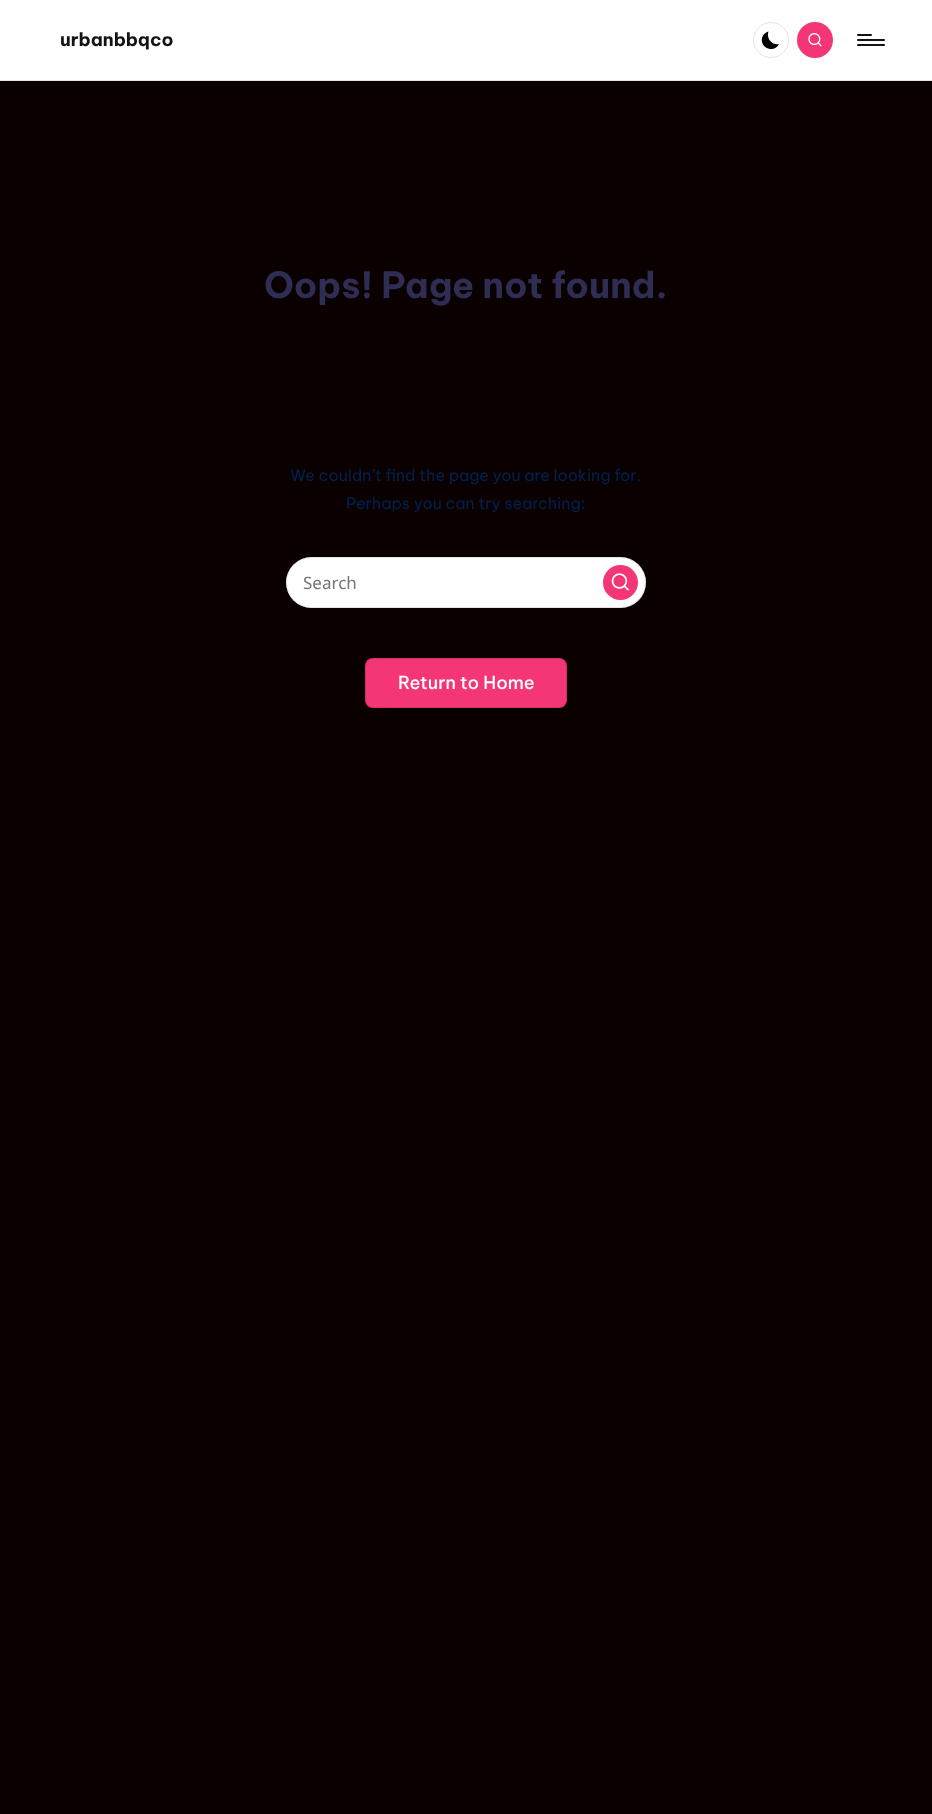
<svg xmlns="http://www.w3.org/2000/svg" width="932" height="1814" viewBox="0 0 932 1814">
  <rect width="100%" height="100%" fill="rgb(10,0,0)"/>
  <rect x="0" y="0" width="932" height="80" fill="rgb(255,255,255)"/>
  <rect x="0" y="80" width="932" height="1" fill="rgb(227,227,227)"/>
  <text x="60" y="46" font-family="Be Vietnam Pro" font-size="18.25" font-weight="bold" fill="rgb(19,19,21)">urbanbbqco</text>
  <circle cx="771" cy="40" r="17.5" fill="none" stroke="rgb(227,227,227)"/>
  <path d="M779 44C772 45.5 766 38.5 768.5 31.5C766.5 32 764.5 33.5 763 35.5C757 46.5 774 54.5 779 44Z" fill="rgb(0,0,0)"/>
  <circle cx="815" cy="40" r="18" fill="rgb(244,54,118)"/>
  <image x="808" y="33" width="14" height="14" href="pic1.png"/>
  <rect x="857" y="39" width="28" height="2" rx="1" fill="rgb(19,19,21)"/>
  <rect x="857" y="34" width="15" height="2" rx="1" fill="rgb(19,19,21)"/>
  <rect x="857" y="44" width="28" height="2" rx="1" fill="rgb(19,19,21)"/>
  <text x="264" y="298" font-family="Be Vietnam Pro" font-size="36" font-weight="bold" fill="rgb(48,45,85)">Oops! Page not found.</text>
  <g font-family="Be Vietnam Pro" font-size="16" fill="rgb(0,32,80)">
    <text x="290" y="481">We couldn’t find the page you are looking for.</text>
    <text x="346" y="509">Perhaps you can try searching:</text>
  </g>
  <rect x="286" y="557" width="360" height="51" rx="25.5" fill="rgb(255,255,255)"/>
  <rect x="286.5" y="557.5" width="359" height="50" rx="25" fill="none" stroke="rgba(185,185,185,0.4)"/>
  <text x="303" y="589" font-family="Noto Sans" font-size="17" fill="rgb(117,117,117)">Search</text>
  <circle cx="620.5" cy="582.5" r="17.5" fill="rgb(244,54,118)"/>
  <image x="611" y="573" width="18" height="18" href="pic2.png"/>
  <rect x="365" y="658" width="202" height="50" rx="8" fill="rgb(244,54,118)"/>
  <rect x="365.5" y="658.5" width="201" height="49" rx="7.5" fill="none" stroke="rgba(0,0,0,0.12)"/>
  <text x="398" y="689" font-family="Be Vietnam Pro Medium" font-size="18" font-weight="500" fill="rgb(255,255,255)">Return to Home</text>
</svg>
